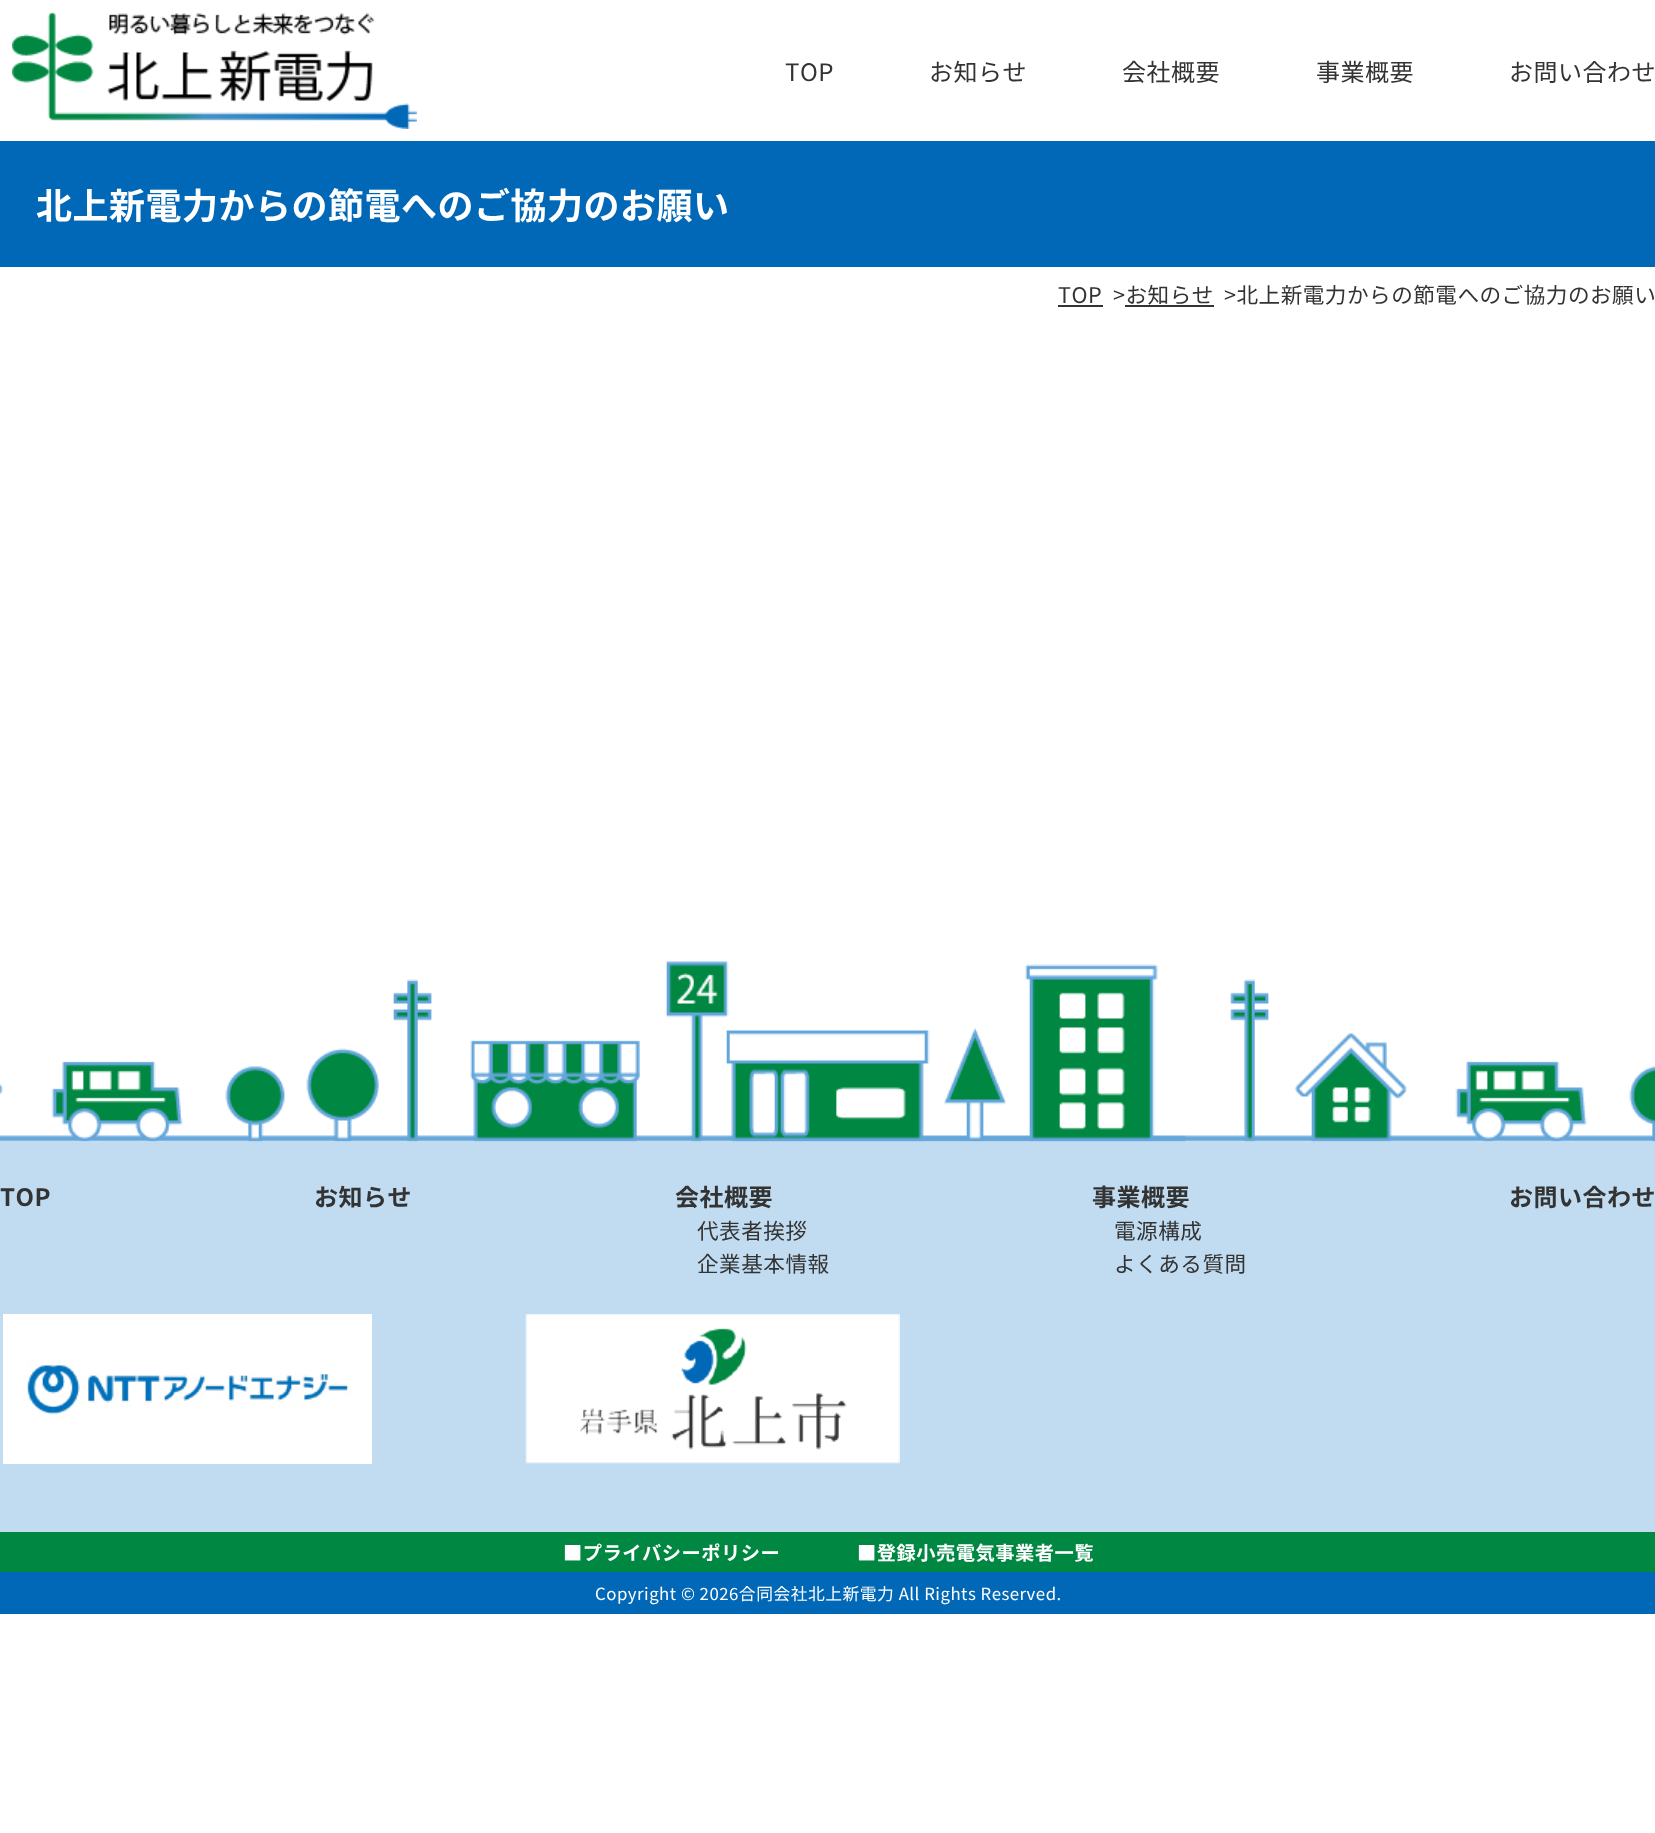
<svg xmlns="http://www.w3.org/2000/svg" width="1655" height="1833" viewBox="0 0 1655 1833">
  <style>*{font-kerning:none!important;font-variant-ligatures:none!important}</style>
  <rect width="100%" height="100%" fill="rgb(255,255,255)"/>
  <image x="12" y="12" width="405" height="117" href="pic1.png"/>
  <g font-family="Noto Sans JP" font-size="24" letter-spacing="0.5" fill="rgb(51,51,51)">
    <text x="785" y="81">TOP</text>
    <text x="929" y="81">お知らせ</text>
    <text x="1122" y="81">会社概要</text>
    <text x="1316" y="81">事業概要</text>
    <text x="1509" y="81">お問い合わせ</text>
  </g>
  <rect x="0" y="141" width="1655" height="126" fill="rgb(0,104,183)"/>
  <text x="36" y="219" font-family="Noto Sans JP" font-size="36" font-weight="bold" letter-spacing="0.5" fill="rgb(255,255,255)">北上新電力からの節電へのご協力のお願い</text>
  <text x="1058" y="303" font-family="Noto Sans JP" font-size="21.6" letter-spacing="0.5" fill="rgb(51,51,51)">TOP</text>
  <rect x="1058" y="305" width="45" height="2" fill="rgb(51,51,51)"/>
  <text x="1113" y="303" font-family="Noto Sans JP" font-size="21.6" letter-spacing="0.5" fill="rgb(51,51,51)">&gt;お知らせ</text>
  <rect x="1125" y="305" width="89" height="2" fill="rgb(51,51,51)"/>
  <text x="1224" y="303" font-family="Noto Sans JP" font-size="21.6" letter-spacing="0.5" fill="rgb(51,51,51)">&gt;北上新電力からの節電へのご協力のお願い</text>
  <rect x="0" y="1142" width="1655" height="390" fill="rgb(193,220,241)"/>
  <image x="0" y="961" width="1655" height="181" href="pic2.png"/>
  <g font-family="Noto Sans JP" font-size="24" font-weight="bold" letter-spacing="0.5" fill="rgb(51,51,51)">
    <text x="0" y="1206">TOP</text>
    <text x="314" y="1206">お知らせ</text>
    <text x="675" y="1206">会社概要</text>
  </g>
  <g font-family="Noto Sans JP" font-size="21.6" letter-spacing="0.5" fill="rgb(51,51,51)">
    <text>
      <tspan x="697" y="1239">代表者挨拶</tspan>
      <tspan x="697" y="1272">企業基本情報</tspan>
    </text>
  </g>
  <text x="1092" y="1206" font-family="Noto Sans JP" font-size="24" font-weight="bold" letter-spacing="0.5" fill="rgb(51,51,51)">事業概要</text>
  <g font-family="Noto Sans JP" font-size="21.6" letter-spacing="0.5" fill="rgb(51,51,51)">
    <text>
      <tspan x="1114" y="1239">電源構成</tspan>
      <tspan x="1114" y="1272">よくある質問</tspan>
    </text>
  </g>
  <text x="1509" y="1206" font-family="Noto Sans JP" font-size="24" font-weight="bold" letter-spacing="0.5" fill="rgb(51,51,51)">お問い合わせ</text>
  <image x="3" y="1314" width="369" height="150" href="pic3.png"/>
  <image x="525" y="1314" width="375" height="150" href="pic4.png"/>
  <rect x="0" y="1532" width="1655" height="40" fill="rgb(0,136,66)"/>
  <g font-family="Noto Sans JP" font-size="19.25" font-weight="bold" letter-spacing="0.5" fill="rgb(255,255,255)">
    <text x="563" y="1560">■プライバシーポリシー</text>
    <text x="857" y="1560">■登録小売電気事業者一覧</text>
  </g>
  <rect x="0" y="1572" width="1655" height="42" fill="rgb(0,104,183)"/>
  <text x="595" y="1600" font-family="Noto Sans JP" font-size="16.8" letter-spacing="0.5" fill="rgb(255,255,255)">Copyright © 2026合同会社北上新電力 All Rights Reserved.</text>
</svg>
